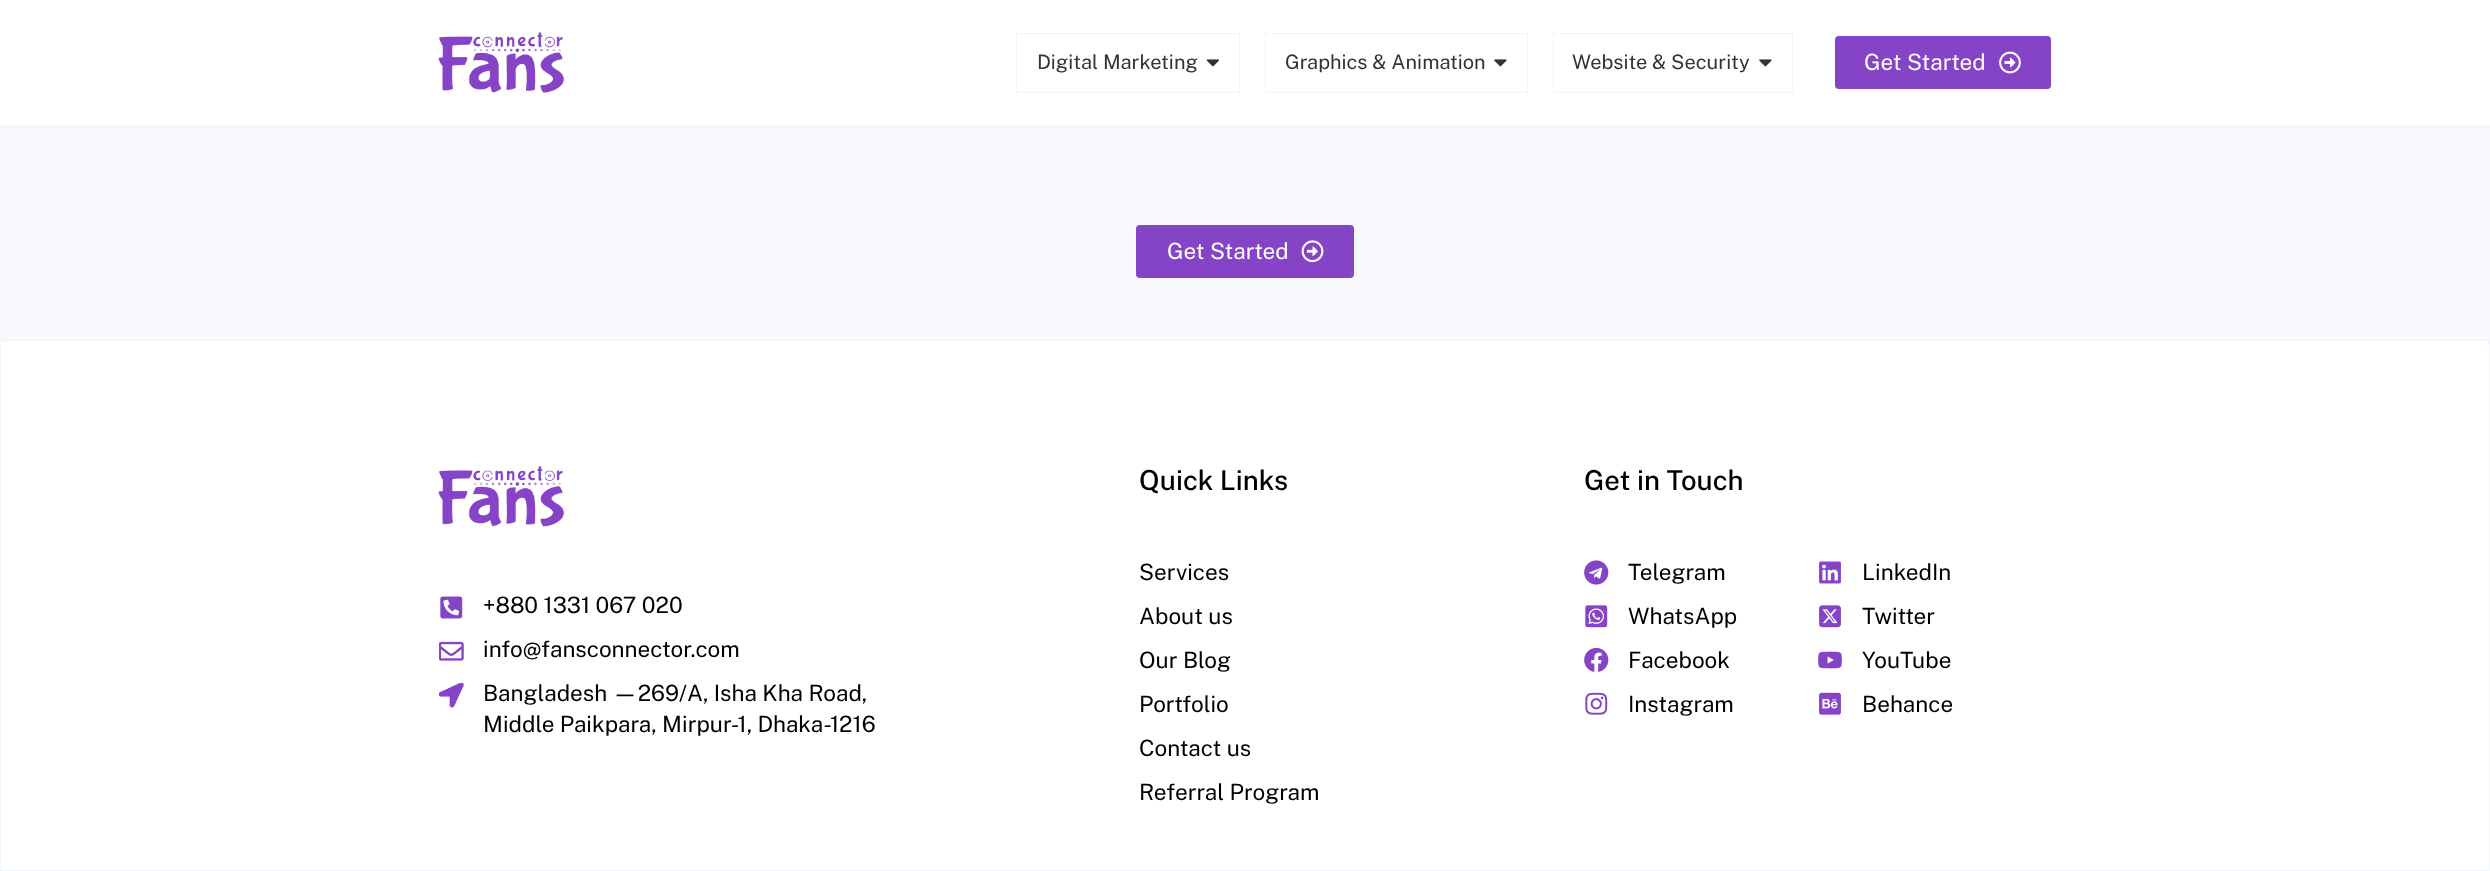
<svg xmlns="http://www.w3.org/2000/svg" width="2490" height="871" viewBox="0 0 2490 871">
  <rect width="100%" height="100%" fill="rgb(255,255,255)"/>
  <image x="438" y="32" width="126" height="61" href="pic1.png"/>
  <rect x="1016.5" y="33.5" width="223" height="59" fill="none" stroke="rgb(241,245,249)"/>
  <text x="1037" y="69" font-family="Public Sans" font-size="20" fill="rgb(51,51,51)">Digital Marketing</text>
  <image x="1206" y="59" width="13" height="8" href="pic2.png"/>
  <rect x="1265.5" y="33.5" width="262" height="59" fill="none" stroke="rgb(241,245,249)"/>
  <text x="1285" y="69" font-family="Public Sans" font-size="20" fill="rgb(51,51,51)">Graphics &amp; Animation</text>
  <image x="1494" y="59" width="13" height="8" href="pic3.png"/>
  <rect x="1553.5" y="33.5" width="239" height="59" fill="none" stroke="rgb(241,245,249)"/>
  <text x="1572" y="69" font-family="Public Sans" font-size="20" fill="rgb(51,51,51)">Website &amp; Security</text>
  <image x="1759" y="59" width="13" height="8" href="pic3.png"/>
  <rect x="1835" y="36" width="216" height="53" rx="4" fill="rgb(133,67,199)"/>
  <text x="1864" y="70" font-family="Public Sans" font-size="22.5" fill="rgb(255,255,255)">Get Started</text>
  <image x="1999" y="51" width="22" height="23" href="pic4.png"/>
  <rect x="0" y="125" width="2490" height="215" fill="rgb(246,248,251)"/>
  <rect x="1136" y="225" width="218" height="53" rx="4" fill="rgb(133,67,199)"/>
  <text x="1167" y="259" font-family="Public Sans" font-size="22.5" fill="rgb(255,255,255)">Get Started</text>
  <image x="1301" y="240" width="23" height="23" href="pic5.png"/>
  <path d="M.5 340.5H2489.5V870C2489.5 870.5 2489.5 870.5 2489 870.5H.5Z" fill="none" stroke="rgb(241,245,249)"/>
  <image x="438" y="466" width="126" height="61" href="pic6.png"/>
  <image x="440" y="596" width="23" height="23" href="pic7.png"/>
  <text x="483" y="613" font-family="Public Sans" font-size="22.5" fill="rgb(0,0,0)">+880 1331 067 020</text>
  <image x="439" y="641" width="25" height="20" href="pic8.png"/>
  <text x="483" y="657" font-family="Public Sans" font-size="22.5" fill="rgb(0,0,0)">info@fansconnector.com</text>
  <image x="439" y="683" width="25" height="25" href="pic9.png"/>
  <g font-family="Public Sans" font-size="22.5" fill="rgb(0,0,0)">
    <text>
      <tspan x="483" y="701">Bangladesh —269/A, Isha Kha Road,</tspan>
      <tspan x="483" y="732">Middle Paikpara, Mirpur-1, Dhaka-1216</tspan>
    </text>
  </g>
  <text x="1139" y="490" font-family="Public Sans" font-size="27.5" font-weight="500" fill="rgb(0,0,0)">Quick Links</text>
  <g font-family="Public Sans" font-size="22.5" fill="rgb(0,0,0)">
    <text>
      <tspan x="1139" y="580">Services</tspan>
      <tspan x="1139" y="624">About us</tspan>
      <tspan x="1139" y="668">Our Blog</tspan>
      <tspan x="1139" y="712">Portfolio</tspan>
      <tspan x="1139" y="756">Contact us</tspan>
      <tspan x="1139" y="800">Referral Program</tspan>
    </text>
  </g>
  <text x="1584" y="490" font-family="Public Sans" font-size="27.5" font-weight="500" fill="rgb(0,0,0)">Get in Touch</text>
  <image x="1584" y="560" width="25" height="25" href="pic10.png"/>
  <text x="1628" y="580" font-family="Public Sans" font-size="22.5" fill="rgb(0,0,0)">Telegram</text>
  <image x="1585" y="605" width="23" height="23" href="pic11.png"/>
  <text x="1628" y="624" font-family="Public Sans" font-size="22.5" fill="rgb(0,0,0)">WhatsApp</text>
  <image x="1584" y="648" width="25" height="24" href="pic12.png"/>
  <text x="1628" y="668" font-family="Public Sans" font-size="22.5" fill="rgb(0,0,0)">Facebook</text>
  <image x="1585" y="692" width="23" height="23" href="pic13.png"/>
  <text x="1628" y="712" font-family="Public Sans" font-size="22.5" fill="rgb(0,0,0)">Instagram</text>
  <image x="1819" y="561" width="22" height="23" href="pic14.png"/>
  <text x="1862" y="580" font-family="Public Sans" font-size="22.5" fill="rgb(0,0,0)">LinkedIn</text>
  <image x="1819" y="605" width="22" height="23" href="pic15.png"/>
  <text x="1862" y="624" font-family="Public Sans" font-size="22.5" fill="rgb(0,0,0)">Twitter</text>
  <image x="1818" y="651" width="24" height="18" href="pic16.png"/>
  <text x="1862" y="668" font-family="Public Sans" font-size="22.5" fill="rgb(0,0,0)">YouTube</text>
  <image x="1819" y="692" width="22" height="23" href="pic17.png"/>
  <text x="1862" y="712" font-family="Public Sans" font-size="22.5" fill="rgb(0,0,0)">Behance</text>
</svg>
